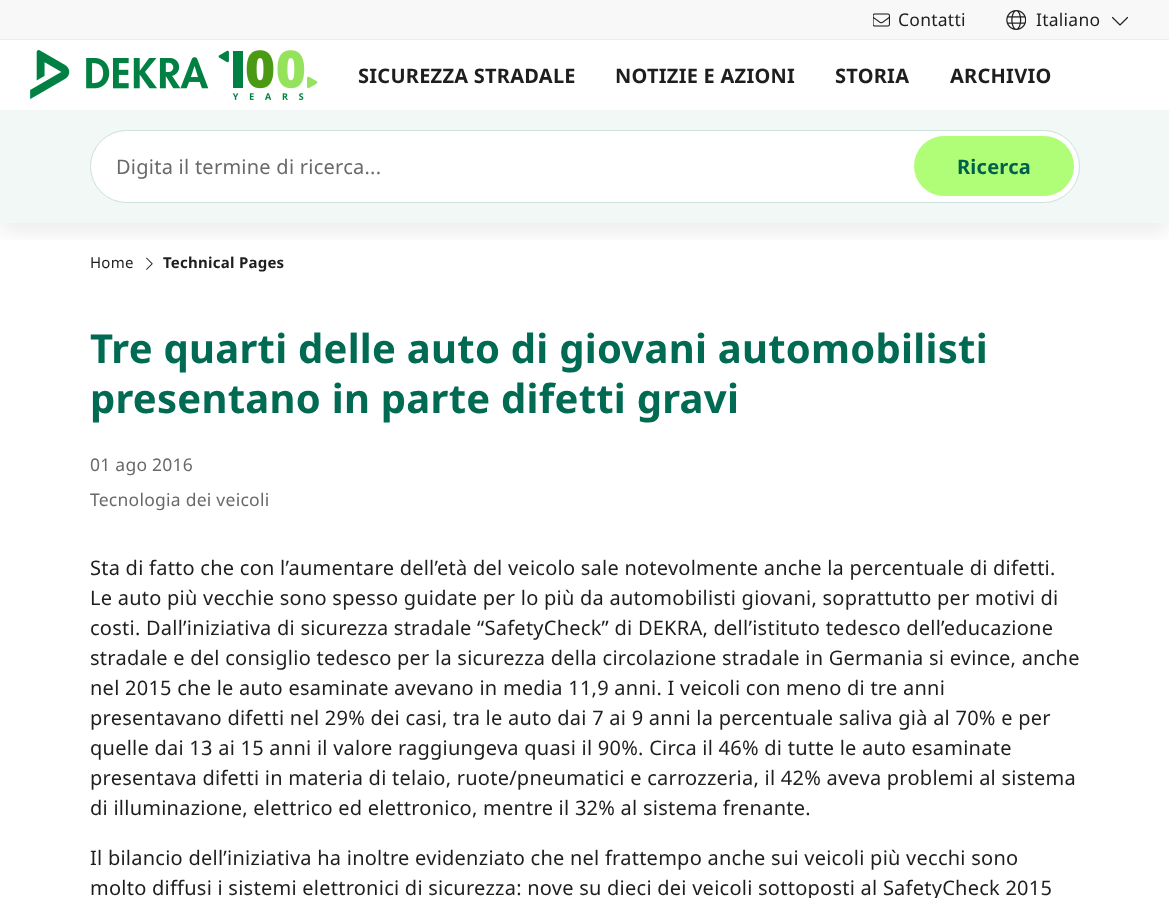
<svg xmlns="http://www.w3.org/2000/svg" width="1169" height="898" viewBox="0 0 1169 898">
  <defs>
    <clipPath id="clip1"><rect x="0" y="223" width="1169" height="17"/></clipPath>
  </defs>
  <rect width="100%" height="100%" fill="rgb(255,255,255)"/>
  <image x="146" y="257" width="7" height="13" href="pic5.png"/>
  <g clip-path="url(#clip1)">
    <rect x="0" y="10" width="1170" height="223" fill="rgba(30,30,30,0.08)" filter="blur(10px)"/>
  </g>
  <rect x="0" y="0" width="1169" height="39" fill="rgb(248,248,248)"/>
  <rect x="0" y="39" width="1169" height="1" fill="rgb(237,237,237)"/>
  <image x="873" y="13" width="17" height="14" href="pic1.png"/>
  <text x="898" y="26" font-family="Noto Sans" font-size="17.5" letter-spacing="0.25" fill="rgb(30,30,30)">Contatti</text>
  <image x="1006" y="10" width="20" height="20" href="pic2.png"/>
  <text x="1036" y="26" font-family="Noto Sans" font-size="17.5" letter-spacing="0.25" fill="rgb(30,30,30)">Italiano</text>
  <image x="1111" y="16" width="18" height="10" href="pic3.png"/>
  <image x="30" y="50" width="288" height="50" href="pic4.png"/>
  <g font-family="Noto Sans" font-size="20" font-weight="bold" letter-spacing="0.25" fill="rgb(30,30,30)">
    <text x="358" y="83">SICUREZZA STRADALE</text>
    <text x="615" y="83">NOTIZIE E AZIONI</text>
    <text x="835" y="83">STORIA</text>
    <text x="950" y="83">ARCHIVIO</text>
  </g>
  <rect x="0" y="110" width="1169" height="113" fill="rgb(242,248,246)"/>
  <rect x="90.5" y="130.5" width="989" height="72" rx="36" fill="rgb(255,255,255)" stroke="rgb(204,225,220)"/>
  <text x="116" y="174" font-family="Noto Sans" font-size="20" letter-spacing="0.25" fill="rgb(105,105,105)">Digita il termine di ricerca...</text>
  <rect x="914" y="136" width="160" height="60" rx="30" fill="rgb(176,253,120)"/>
  <text x="957" y="174" font-family="Noto Sans" font-size="20" font-weight="bold" letter-spacing="0.25" fill="rgb(1,96,74)">Ricerca</text>
  <text x="90" y="268" font-family="Noto Sans" font-size="15" letter-spacing="0.25" fill="rgb(30,30,30)">Home</text>
  <text x="163" y="268" font-family="Noto Sans" font-size="15" font-weight="bold" letter-spacing="0.25" fill="rgb(30,30,30)">Technical Pages</text>
  <g font-family="Noto Sans" font-size="40" font-weight="bold" letter-spacing="0.25" fill="rgb(0,107,82)">
    <text>
      <tspan x="90" y="363">Tre quarti delle auto di giovani automobilisti</tspan>
      <tspan x="90" y="413">presentano in parte difetti gravi</tspan>
    </text>
  </g>
  <g font-family="Noto Sans" font-size="17.5" letter-spacing="0.25" fill="rgb(105,105,105)">
    <text x="90" y="471">01 ago 2016</text>
    <text x="90" y="506">Tecnologia dei veicoli</text>
  </g>
  <g font-family="Noto Sans" font-size="20" letter-spacing="0.25" fill="rgb(30,30,30)">
    <text>
      <tspan x="90" y="575">Sta di fatto che con l’aumentare dell’età del veicolo sale notevolmente anche la percentuale di difetti.</tspan>
      <tspan x="90" y="605">Le auto più vecchie sono spesso guidate per lo più da automobilisti giovani, soprattutto per motivi di</tspan>
      <tspan x="90" y="635">costi. Dall’iniziativa di sicurezza stradale “SafetyCheck” di DEKRA, dell’istituto tedesco dell’educazione</tspan>
      <tspan x="90" y="665">stradale e del consiglio tedesco per la sicurezza della circolazione stradale in Germania si evince, anche</tspan>
      <tspan x="90" y="695">nel 2015 che le auto esaminate avevano in media 11,9 anni. I veicoli con meno di tre anni</tspan>
      <tspan x="90" y="725">presentavano difetti nel 29% dei casi, tra le auto dai 7 ai 9 anni la percentuale saliva già al 70% e per</tspan>
      <tspan x="90" y="755">quelle dai 13 ai 15 anni il valore raggiungeva quasi il 90%. Circa il 46% di tutte le auto esaminate</tspan>
      <tspan x="90" y="785">presentava difetti in materia di telaio, ruote/pneumatici e carrozzeria, il 42% aveva problemi al sistema</tspan>
      <tspan x="90" y="815">di illuminazione, elettrico ed elettronico, mentre il 32% al sistema frenante.</tspan>
    </text>
    <text>
      <tspan x="90" y="865">Il bilancio dell’iniziativa ha inoltre evidenziato che nel frattempo anche sui veicoli più vecchi sono</tspan>
      <tspan x="90" y="895">molto diffusi i sistemi elettronici di sicurezza: nove su dieci dei veicoli sottoposti al SafetyCheck 2015</tspan>
    </text>
  </g>
</svg>
